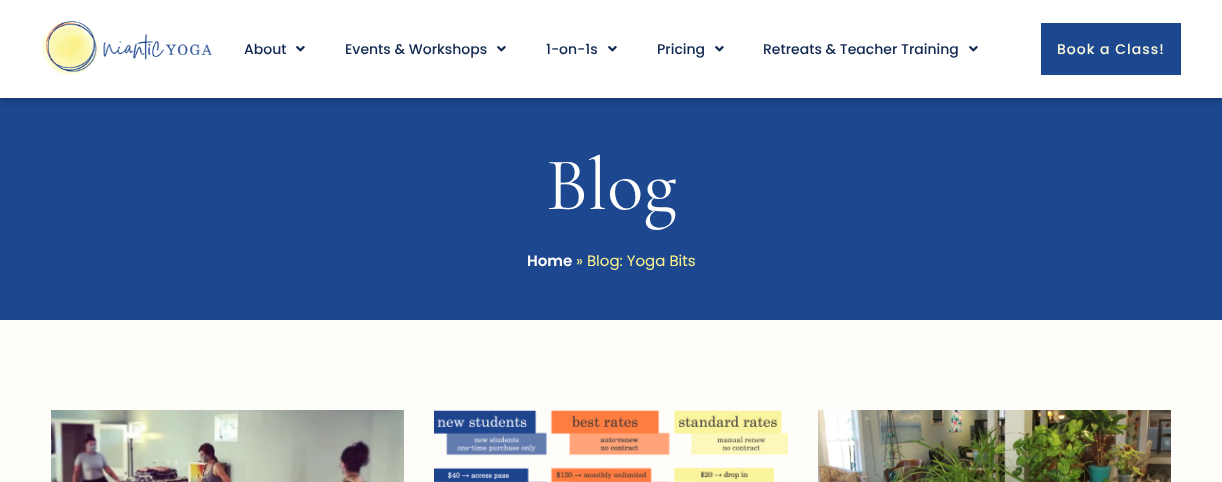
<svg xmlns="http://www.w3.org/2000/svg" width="1222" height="482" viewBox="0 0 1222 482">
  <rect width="100%" height="100%" fill="rgb(255,253,250)"/>
  <rect x="0" y="98" width="1222" height="222" fill="rgb(29,71,142)"/>
  <rect x="0" y="0" width="1222" height="98" fill="rgba(0,0,0,0.36)" filter="blur(5px)"/>
  <rect x="0" y="0" width="1222" height="98" fill="rgb(255,255,255)"/>
  <image x="41" y="21" width="171" height="55" href="pic1.png"/>
  <text x="244" y="54" font-family="Poppins" font-size="14" font-weight="500" fill="rgb(16,39,79)">About</text>
  <image x="296" y="46" width="9" height="6" href="pic2.png"/>
  <text x="345" y="54" font-family="Poppins" font-size="14" font-weight="500" fill="rgb(16,39,79)">Events &amp; Workshops</text>
  <image x="497" y="46" width="9" height="6" href="pic2.png"/>
  <text x="546" y="54" font-family="Poppins" font-size="14" font-weight="500" fill="rgb(16,39,79)">1-on-1s</text>
  <image x="608" y="46" width="9" height="6" href="pic2.png"/>
  <text x="657" y="54" font-family="Poppins" font-size="14" font-weight="500" fill="rgb(16,39,79)">Pricing</text>
  <image x="715" y="46" width="9" height="6" href="pic2.png"/>
  <text x="763" y="54" font-family="Poppins" font-size="14" font-weight="500" fill="rgb(16,39,79)">Retreats &amp; Teacher Training</text>
  <image x="969" y="46" width="9" height="6" href="pic2.png"/>
  <rect x="1041" y="23" width="140" height="52" fill="rgb(29,71,142)"/>
  <text x="1057" y="54" font-family="Poppins" font-size="14" font-weight="500" letter-spacing="1" fill="rgb(252,251,223)">Book a Class!</text>
  <text x="546" y="209" font-family="Cormorant Garamond" font-size="75" fill="rgb(255,255,255)">Blog</text>
  <text x="527" y="266" font-family="Poppins" font-size="15" font-weight="600" fill="rgb(255,255,255)">Home</text>
  <text x="576" y="266" font-family="Poppins" font-size="15" fill="rgb(251,242,142)">» Blog: Yoga Bits</text>
  <image x="51" y="410" width="353" height="72" href="pic3.png"/>
  <image x="434" y="410" width="354" height="72" href="pic4.png"/>
  <image x="818" y="410" width="353" height="72" href="pic5.png"/>
</svg>
